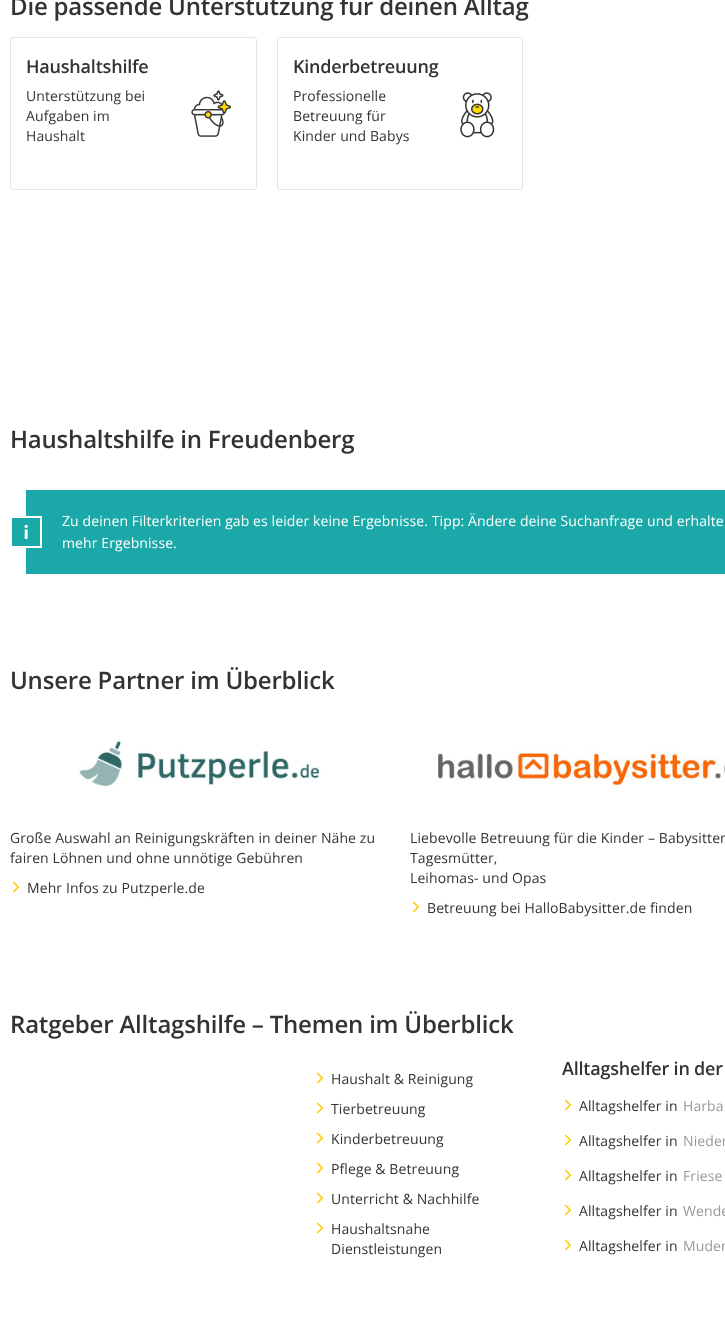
<svg xmlns="http://www.w3.org/2000/svg" width="725" height="1322" viewBox="0 0 725 1322">
  <rect width="100%" height="100%" fill="rgb(255,255,255)"/>
  <text x="10" y="15" font-family="Open Sans" font-size="24" font-weight="600" letter-spacing="-0.2" fill="rgb(51,51,51)">Die passende Unterstützung für deinen Alltag</text>
  <rect x="10.5" y="37.5" width="246" height="152" rx="2.5" fill="none" stroke="rgb(229,229,229)"/>
  <text x="26" y="73" font-family="Open Sans" font-size="18" font-weight="600" letter-spacing="-0.2" fill="rgb(51,51,51)">Haushaltshilfe</text>
  <g font-family="Open Sans" font-size="14" letter-spacing="0.1" fill="rgb(51,51,51)">
    <text>
      <tspan x="26" y="101">Unterstützung bei</tspan>
      <tspan x="26" y="121">Aufgaben im</tspan>
      <tspan x="26" y="141">Haushalt</tspan>
    </text>
  </g>
  <image x="191" y="90" width="40" height="47" href="pic1.png"/>
  <rect x="277.5" y="37.5" width="245" height="152" rx="2.5" fill="none" stroke="rgb(229,229,229)"/>
  <text x="293" y="73" font-family="Open Sans" font-size="18" font-weight="600" letter-spacing="-0.2" fill="rgb(51,51,51)">Kinderbetreuung</text>
  <g font-family="Open Sans" font-size="14" letter-spacing="0.1" fill="rgb(51,51,51)">
    <text>
      <tspan x="293" y="101">Professionelle</tspan>
      <tspan x="293" y="121">Betreuung für</tspan>
      <tspan x="293" y="141">Kinder und Babys</tspan>
    </text>
  </g>
  <image x="460" y="92" width="35" height="46" href="pic2.png"/>
  <text x="10" y="448" font-family="Open Sans" font-size="24" font-weight="600" letter-spacing="-0.2" fill="rgb(51,51,51)">Haushaltshilfe in Freudenberg</text>
  <rect x="26" y="490" width="699" height="84" fill="rgb(27,168,168)"/>
  <rect x="12" y="518" width="14" height="28" fill="rgb(27,168,168)"/>
  <rect x="11" y="517" width="30" height="30" fill="none" stroke="rgb(255,255,255)" stroke-width="2"/>
  <image x="24" y="525" width="4" height="14" href="pic3.png"/>
  <g font-family="Open Sans" font-size="14" letter-spacing="0.1" fill="rgb(255,255,255)">
    <text>
      <tspan x="62" y="526">Zu deinen Filterkriterien gab es leider keine Ergebnisse. Tipp: Ändere deine Suchanfrage und erhalte</tspan>
      <tspan x="62" y="548">mehr Ergebnisse.</tspan>
    </text>
  </g>
  <text x="10" y="689" font-family="Open Sans" font-size="24" font-weight="600" letter-spacing="-0.2" fill="rgb(51,51,51)">Unsere Partner im Überblick</text>
  <image x="79" y="741" width="242" height="49" href="pic4.png"/>
  <g font-family="Open Sans" font-size="14" letter-spacing="0.1" fill="rgb(51,51,51)">
    <text>
      <tspan x="10" y="843">Große Auswahl an Reinigungskräften in deiner Nähe zu</tspan>
      <tspan x="10" y="863">fairen Löhnen und ohne unnötige Gebühren</tspan>
    </text>
  </g>
  <image x="12" y="881" width="8" height="12" href="pic5.png"/>
  <text x="27" y="893" font-family="Open Sans" font-size="14" letter-spacing="0.1" fill="rgb(51,51,51)">Mehr Infos zu Putzperle.de</text>
  <image x="438" y="750" width="287" height="40" href="pic6.png"/>
  <g font-family="Open Sans" font-size="14" letter-spacing="0.1" fill="rgb(51,51,51)">
    <text>
      <tspan x="410" y="843">Liebevolle Betreuung für die Kinder – Babysitter</tspan>
      <tspan x="410" y="863">Tagesmütter,</tspan>
      <tspan x="410" y="883">Leihomas- und Opas</tspan>
    </text>
  </g>
  <image x="412" y="901" width="8" height="12" href="pic5.png"/>
  <text x="427" y="913" font-family="Open Sans" font-size="14" letter-spacing="0.1" fill="rgb(51,51,51)">Betreuung bei HalloBabysitter.de finden</text>
  <text x="10" y="1033" font-family="Open Sans" font-size="24" font-weight="600" letter-spacing="-0.2" fill="rgb(51,51,51)">Ratgeber Alltagshilfe – Themen im Überblick</text>
  <image x="316" y="1072" width="8" height="12" href="pic5.png"/>
  <text x="331" y="1084" font-family="Open Sans" font-size="14" letter-spacing="0.1" fill="rgb(51,51,51)">Haushalt &amp; Reinigung</text>
  <image x="316" y="1102" width="8" height="12" href="pic5.png"/>
  <text x="331" y="1114" font-family="Open Sans" font-size="14" letter-spacing="0.1" fill="rgb(51,51,51)">Tierbetreuung</text>
  <image x="316" y="1132" width="8" height="12" href="pic5.png"/>
  <text x="331" y="1144" font-family="Open Sans" font-size="14" letter-spacing="0.1" fill="rgb(51,51,51)">Kinderbetreuung</text>
  <image x="316" y="1162" width="8" height="12" href="pic5.png"/>
  <text x="331" y="1174" font-family="Open Sans" font-size="14" letter-spacing="0.1" fill="rgb(51,51,51)">Pflege &amp; Betreuung</text>
  <image x="316" y="1192" width="8" height="12" href="pic5.png"/>
  <text x="331" y="1204" font-family="Open Sans" font-size="14" letter-spacing="0.1" fill="rgb(51,51,51)">Unterricht &amp; Nachhilfe</text>
  <image x="316" y="1222" width="8" height="12" href="pic5.png"/>
  <g font-family="Open Sans" font-size="14" letter-spacing="0.1" fill="rgb(51,51,51)">
    <text>
      <tspan x="331" y="1234">Haushaltsnahe</tspan>
      <tspan x="331" y="1254">Dienstleistungen</tspan>
    </text>
  </g>
  <text x="562" y="1075" font-family="Open Sans" font-size="18" font-weight="600" letter-spacing="-0.2" fill="rgb(51,51,51)">Alltagshelfer in der</text>
  <image x="564" y="1099" width="8" height="12" href="pic5.png"/>
  <text x="579" y="1111" font-family="Open Sans" font-size="14" letter-spacing="0.1" fill="rgb(51,51,51)">Alltagshelfer in</text>
  <text x="683" y="1111" font-family="Open Sans" font-size="14" letter-spacing="0.1" fill="rgb(153,153,153)">Harba</text>
  <image x="564" y="1134" width="8" height="12" href="pic5.png"/>
  <text x="579" y="1146" font-family="Open Sans" font-size="14" letter-spacing="0.1" fill="rgb(51,51,51)">Alltagshelfer in</text>
  <text x="683" y="1146" font-family="Open Sans" font-size="14" letter-spacing="0.1" fill="rgb(153,153,153)">Nieder</text>
  <image x="564" y="1169" width="8" height="12" href="pic5.png"/>
  <text x="579" y="1181" font-family="Open Sans" font-size="14" letter-spacing="0.1" fill="rgb(51,51,51)">Alltagshelfer in</text>
  <text x="683" y="1181" font-family="Open Sans" font-size="14" letter-spacing="0.1" fill="rgb(153,153,153)">Friese</text>
  <image x="564" y="1204" width="8" height="12" href="pic5.png"/>
  <text x="579" y="1216" font-family="Open Sans" font-size="14" letter-spacing="0.1" fill="rgb(51,51,51)">Alltagshelfer in</text>
  <text x="683" y="1216" font-family="Open Sans" font-size="14" letter-spacing="0.1" fill="rgb(153,153,153)">Wende</text>
  <image x="564" y="1239" width="8" height="12" href="pic5.png"/>
  <text x="579" y="1251" font-family="Open Sans" font-size="14" letter-spacing="0.1" fill="rgb(51,51,51)">Alltagshelfer in</text>
  <text x="683" y="1251" font-family="Open Sans" font-size="14" letter-spacing="0.1" fill="rgb(153,153,153)">Muder</text>
</svg>
